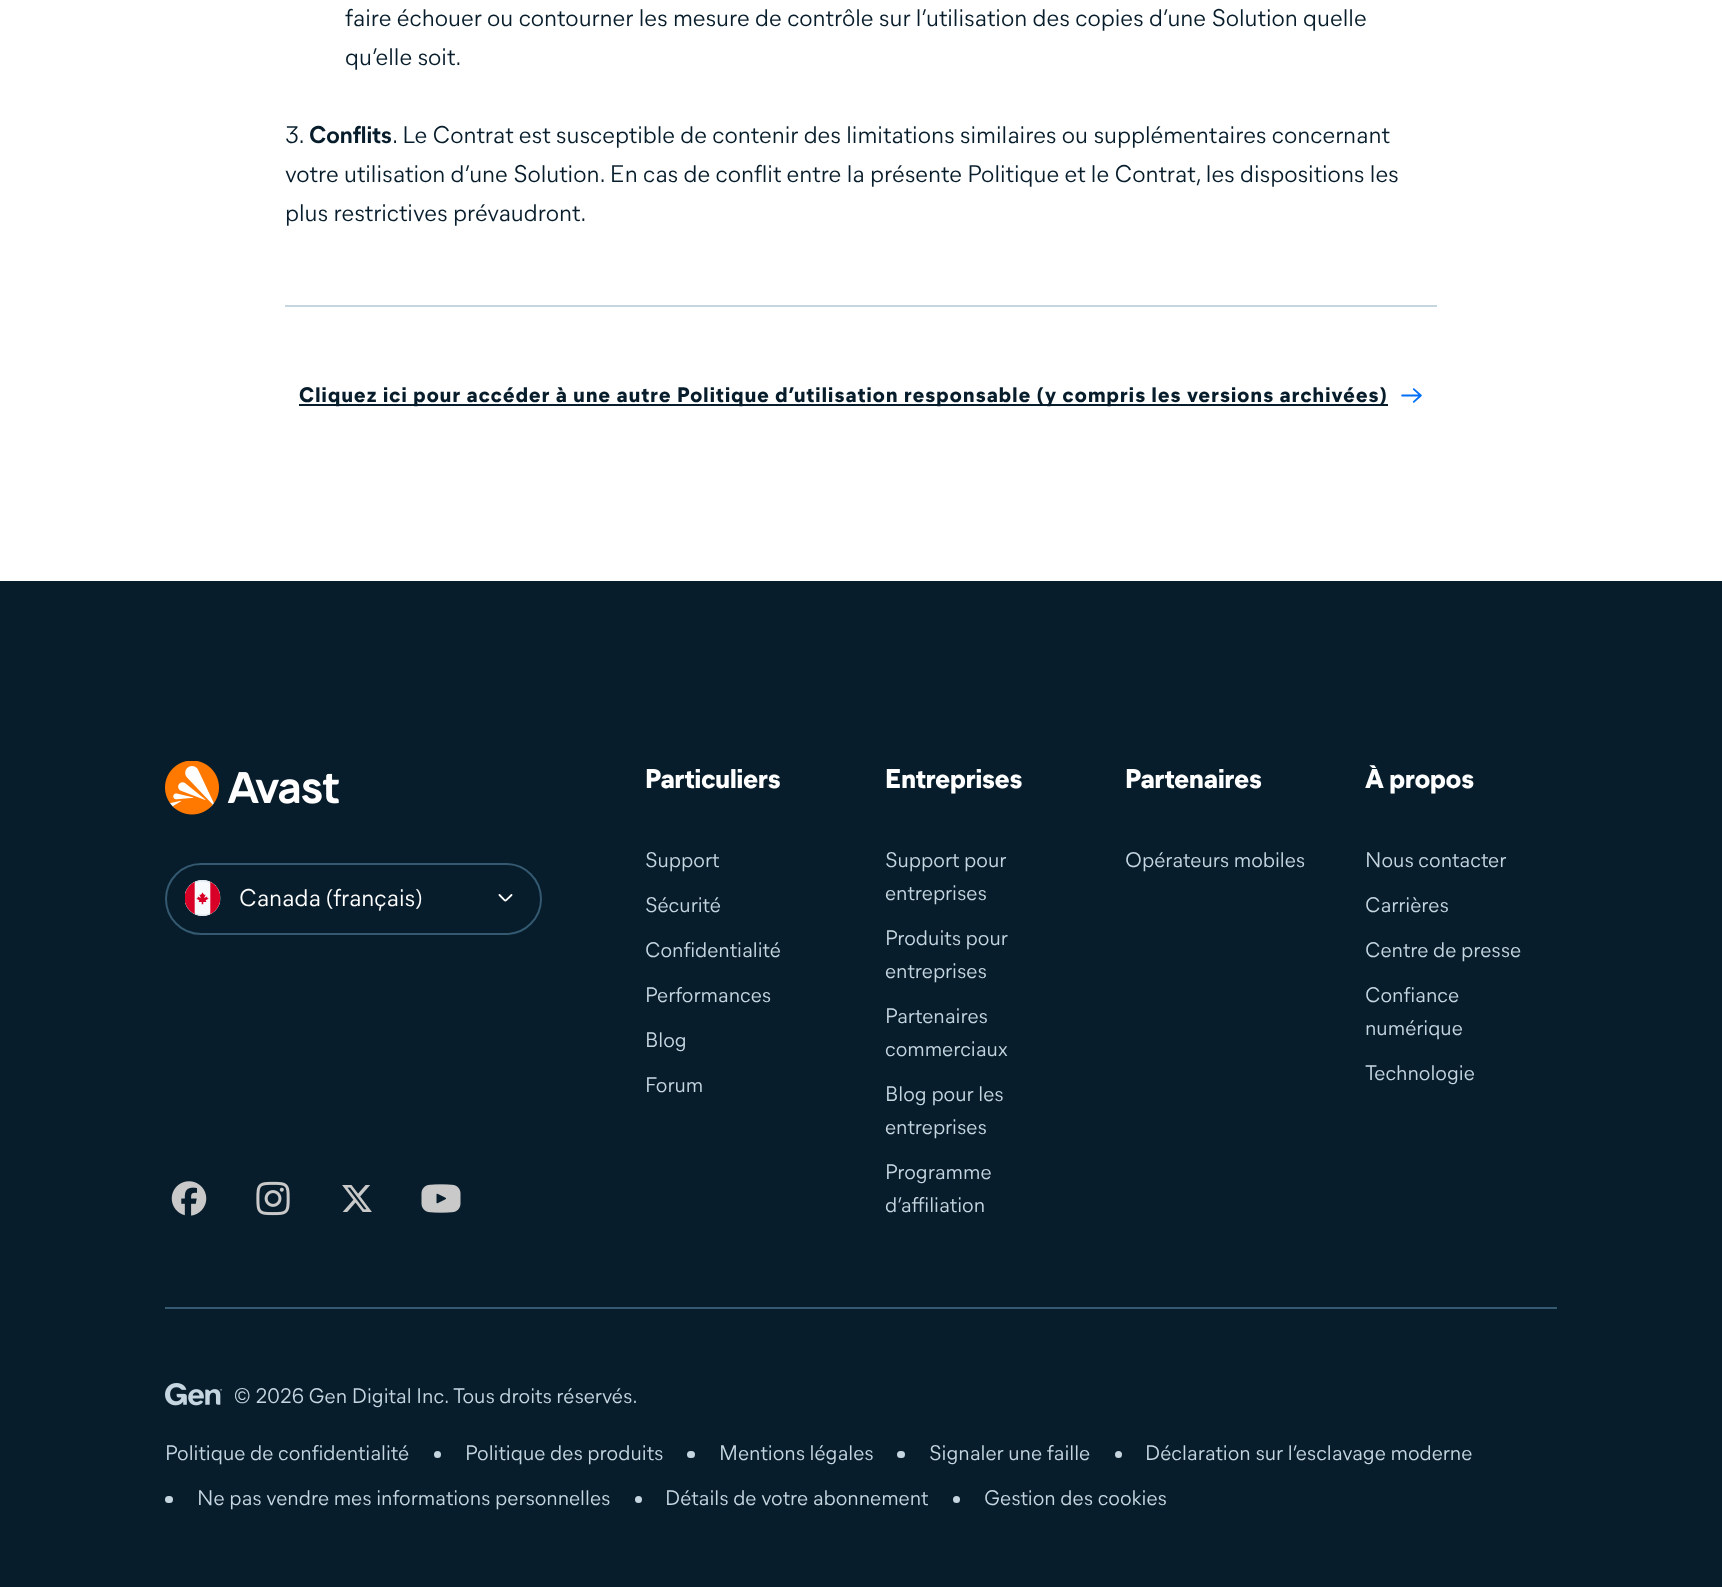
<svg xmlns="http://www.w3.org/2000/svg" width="1722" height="1587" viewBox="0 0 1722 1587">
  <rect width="100%" height="100%" fill="rgb(255,255,255)"/>
  <g font-family="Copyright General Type" font-size="24" fill="rgb(7,29,43)">
    <text>
      <tspan x="345" y="26">faire échouer ou contourner les mesure de contrôle sur l’utilisation des copies d’une Solution quelle</tspan>
      <tspan x="345" y="65">qu’elle soit.</tspan>
    </text>
    <text x="285" y="143">3.</text>
  </g>
  <text x="309" y="143" font-family="Copyright General Type" font-size="24" font-weight="bold" fill="rgb(7,29,43)">Conflits</text>
  <g font-family="Copyright General Type" font-size="24" fill="rgb(7,29,43)">
    <text x="392" y="143">. Le Contrat est susceptible de contenir des limitations similaires ou supplémentaires concernant</text>
    <text>
      <tspan x="285" y="182">votre utilisation d’une Solution. En cas de conflit entre la présente Politique et le Contrat, les dispositions les</tspan>
      <tspan x="285" y="221">plus restrictives prévaudront.</tspan>
    </text>
  </g>
  <rect x="285" y="305" width="1152" height="2" fill="rgb(197,214,224)"/>
  <rect x="299" y="404" width="1089" height="2" fill="rgb(7,29,43)"/>
  <text x="299" y="402" font-family="'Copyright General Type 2'" font-size="21" font-weight="bold" letter-spacing="1.2" fill="rgb(7,29,43)">Cliquez ici pour accéder à une autre Politique d’utilisation responsable (y compris les versions archivées)</text>
  <image x="1401" y="388" width="21" height="15" href="pic1.png"/>
  <rect x="0" y="581" width="1722" height="1006" fill="rgb(7,29,43)"/>
  <image x="165" y="761" width="174" height="54" href="pic2.png"/>
  <rect x="166" y="864" width="375" height="70" rx="35" fill="none" stroke="rgb(52,89,112)" stroke-width="2"/>
  <image x="185" y="880" width="36" height="36" href="pic3.png"/>
  <text x="239" y="906" font-family="Copyright General Type" font-size="24" fill="rgb(255,255,255)">Canada (français)</text>
  <image x="498" y="894" width="15" height="8" href="pic4.png"/>
  <image x="171" y="1181" width="36" height="35" href="pic5.png"/>
  <image x="256" y="1181" width="34" height="35" href="pic6.png"/>
  <image x="342" y="1185" width="30" height="27" href="pic7.png"/>
  <image x="421" y="1184" width="40" height="29" href="pic8.png"/>
  <text x="645" y="788" font-family="'Copyright General Type 2'" font-size="27" font-weight="bold" fill="rgb(255,255,255)">Particuliers</text>
  <g font-family="Copyright General Type" font-size="21" fill="rgb(197,214,224)">
    <text x="645" y="867">Support</text>
    <text x="645" y="912">Sécurité</text>
    <text x="645" y="957">Confidentialité</text>
    <text x="645" y="1002">Performances</text>
    <text x="645" y="1047">Blog</text>
    <text x="645" y="1092">Forum</text>
  </g>
  <text x="885" y="788" font-family="'Copyright General Type 2'" font-size="27" font-weight="bold" fill="rgb(255,255,255)">Entreprises</text>
  <g font-family="Copyright General Type" font-size="21" fill="rgb(197,214,224)">
    <text>
      <tspan x="885" y="867">Support pour</tspan>
      <tspan x="885" y="900">entreprises</tspan>
    </text>
    <text>
      <tspan x="885" y="945">Produits pour</tspan>
      <tspan x="885" y="978">entreprises</tspan>
    </text>
    <text>
      <tspan x="885" y="1023">Partenaires</tspan>
      <tspan x="885" y="1056">commerciaux</tspan>
    </text>
    <text>
      <tspan x="885" y="1101">Blog pour les</tspan>
      <tspan x="885" y="1134">entreprises</tspan>
    </text>
    <text>
      <tspan x="885" y="1179">Programme</tspan>
      <tspan x="885" y="1212">d’affiliation</tspan>
    </text>
  </g>
  <text x="1125" y="788" font-family="'Copyright General Type 2'" font-size="27" font-weight="bold" fill="rgb(255,255,255)">Partenaires</text>
  <text x="1125" y="867" font-family="Copyright General Type" font-size="21" fill="rgb(197,214,224)">Opérateurs mobiles</text>
  <text x="1365" y="788" font-family="'Copyright General Type 2'" font-size="27" font-weight="bold" fill="rgb(255,255,255)">À propos</text>
  <g font-family="Copyright General Type" font-size="21" fill="rgb(197,214,224)">
    <text x="1365" y="867">Nous contacter</text>
    <text x="1365" y="912">Carrières</text>
    <text x="1365" y="957">Centre de presse</text>
    <text>
      <tspan x="1365" y="1002">Confiance</tspan>
      <tspan x="1365" y="1035">numérique</tspan>
    </text>
    <text x="1365" y="1080">Technologie</text>
  </g>
  <rect x="165" y="1307" width="1392" height="2" fill="rgb(52,89,112)"/>
  <image x="165" y="1383" width="57" height="23" href="pic9.png"/>
  <g font-family="Copyright General Type" font-size="21" fill="rgb(197,214,224)">
    <text x="234" y="1403">© 2026 Gen Digital Inc. Tous droits réservés.</text>
    <text x="165" y="1460">Politique de confidentialité</text>
  </g>
  <circle cx="437.5" cy="1454.5" r="3.5" fill="rgb(197,214,224)"/>
  <text x="465" y="1460" font-family="Copyright General Type" font-size="21" fill="rgb(197,214,224)">Politique des produits</text>
  <rect x="687" y="1451" width="8" height="7" rx="3.5" fill="rgb(197,214,224)"/>
  <text x="719" y="1460" font-family="Copyright General Type" font-size="21" fill="rgb(197,214,224)">Mentions légales</text>
  <rect x="897" y="1451" width="8" height="7" rx="3.5" fill="rgb(197,214,224)"/>
  <text x="929" y="1460" font-family="Copyright General Type" font-size="21" fill="rgb(197,214,224)">Signaler une faille</text>
  <circle cx="1118.5" cy="1454.5" r="3.5" fill="rgb(197,214,224)"/>
  <text x="1145" y="1460" font-family="Copyright General Type" font-size="21" fill="rgb(197,214,224)">Déclaration sur l’esclavage moderne</text>
  <rect x="165" y="1496" width="8" height="7" rx="3.5" fill="rgb(197,214,224)"/>
  <text x="197" y="1505" font-family="Copyright General Type" font-size="21" fill="rgb(197,214,224)">Ne pas vendre mes informations personnelles</text>
  <circle cx="638.5" cy="1499.5" r="3.5" fill="rgb(197,214,224)"/>
  <text x="665" y="1505" font-family="Copyright General Type" font-size="21" fill="rgb(197,214,224)">Détails de votre abonnement</text>
  <circle cx="956.5" cy="1499.5" r="3.5" fill="rgb(197,214,224)"/>
  <text x="984" y="1505" font-family="Copyright General Type" font-size="21" fill="rgb(197,214,224)">Gestion des cookies</text>
</svg>
